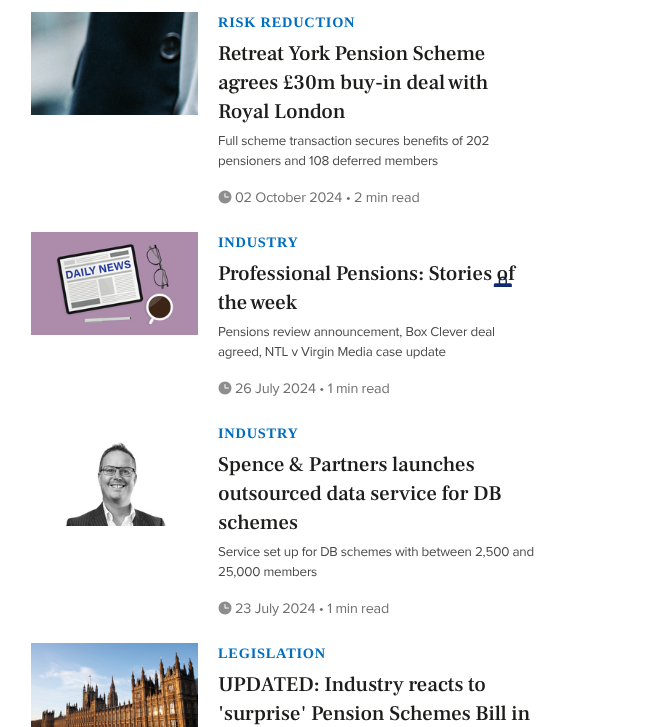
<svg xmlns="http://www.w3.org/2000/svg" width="657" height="727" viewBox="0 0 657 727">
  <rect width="100%" height="100%" fill="rgb(255,255,255)"/>
  <image x="31" y="12" width="167" height="103" href="pic1.png"/>
  <text x="218" y="27" font-family="Liberation Serif" font-size="14.4" font-weight="bold" letter-spacing="0.75" fill="rgb(0,110,190)">RISK REDUCTION</text>
  <g font-family="Frank Ruhl Libre" font-size="20.9" font-weight="500" letter-spacing="-0.2" fill="rgb(29,29,27)">
    <text>
      <tspan x="218" y="60">Retreat York Pension Scheme</tspan>
      <tspan x="218" y="89">agrees £30m buy-in deal with</tspan>
      <tspan x="218" y="118">Royal London</tspan>
    </text>
  </g>
  <g font-family="Proxima Nova" font-size="13.4" letter-spacing="-0.2" fill="rgb(74,74,73)">
    <text>
      <tspan x="218" y="145">Full scheme transaction secures benefits of 202</tspan>
      <tspan x="218" y="165">pensioners and 108 deferred members</tspan>
    </text>
  </g>
  <image x="218" y="190" width="14" height="14" href="pic2.png"/>
  <text x="235" y="202" font-family="Proxima Nova" font-size="14.4" letter-spacing="-0.2" fill="rgb(111,111,111)">02 October 2024 • 2 min read</text>
  <image x="31" y="232" width="167" height="103" href="pic3.png"/>
  <text x="218" y="247" font-family="Liberation Serif" font-size="14.4" font-weight="bold" letter-spacing="0.75" fill="rgb(0,110,190)">INDUSTRY</text>
  <image x="493" y="276" width="19" height="11" href="pic4.png"/>
  <g font-family="Frank Ruhl Libre" font-size="20.9" font-weight="500" letter-spacing="-0.2" fill="rgb(29,29,27)">
    <text>
      <tspan x="218" y="280">Professional Pensions: Stories of</tspan>
      <tspan x="218" y="309">the week</tspan>
    </text>
  </g>
  <g font-family="Proxima Nova" font-size="13.4" letter-spacing="-0.2" fill="rgb(74,74,73)">
    <text>
      <tspan x="218" y="336">Pensions review announcement, Box Clever deal</tspan>
      <tspan x="218" y="356">agreed, NTL v Virgin Media case update</tspan>
    </text>
  </g>
  <image x="218" y="381" width="14" height="14" href="pic2.png"/>
  <text x="235" y="393" font-family="Proxima Nova" font-size="14.4" letter-spacing="-0.2" fill="rgb(111,111,111)">26 July 2024 • 1 min read</text>
  <image x="66" y="442" width="100" height="84" href="pic5.png"/>
  <text x="218" y="438" font-family="Liberation Serif" font-size="14.4" font-weight="bold" letter-spacing="0.75" fill="rgb(0,110,190)">INDUSTRY</text>
  <g font-family="Frank Ruhl Libre" font-size="20.9" font-weight="500" letter-spacing="-0.2" fill="rgb(29,29,27)">
    <text>
      <tspan x="218" y="471">Spence &amp; Partners launches</tspan>
      <tspan x="218" y="500">outsourced data service for DB</tspan>
      <tspan x="218" y="529">schemes</tspan>
    </text>
  </g>
  <g font-family="Proxima Nova" font-size="13.4" letter-spacing="-0.2" fill="rgb(74,74,73)">
    <text>
      <tspan x="218" y="556">Service set up for DB schemes with between 2,500 and</tspan>
      <tspan x="218" y="576">25,000 members</tspan>
    </text>
  </g>
  <image x="218" y="601" width="14" height="14" href="pic2.png"/>
  <text x="235" y="613" font-family="Proxima Nova" font-size="14.4" letter-spacing="-0.2" fill="rgb(111,111,111)">23 July 2024 • 1 min read</text>
  <image x="31" y="643" width="167" height="84" href="pic6.png"/>
  <text x="218" y="658" font-family="Liberation Serif" font-size="14.4" font-weight="bold" letter-spacing="0.75" fill="rgb(0,110,190)">LEGISLATION</text>
  <g font-family="Frank Ruhl Libre" font-size="20.9" font-weight="500" letter-spacing="-0.2" fill="rgb(29,29,27)">
    <text>
      <tspan x="218" y="691">UPDATED: Industry reacts to</tspan>
      <tspan x="218" y="720">'surprise' Pension Schemes Bill in</tspan>
    </text>
  </g>
</svg>
